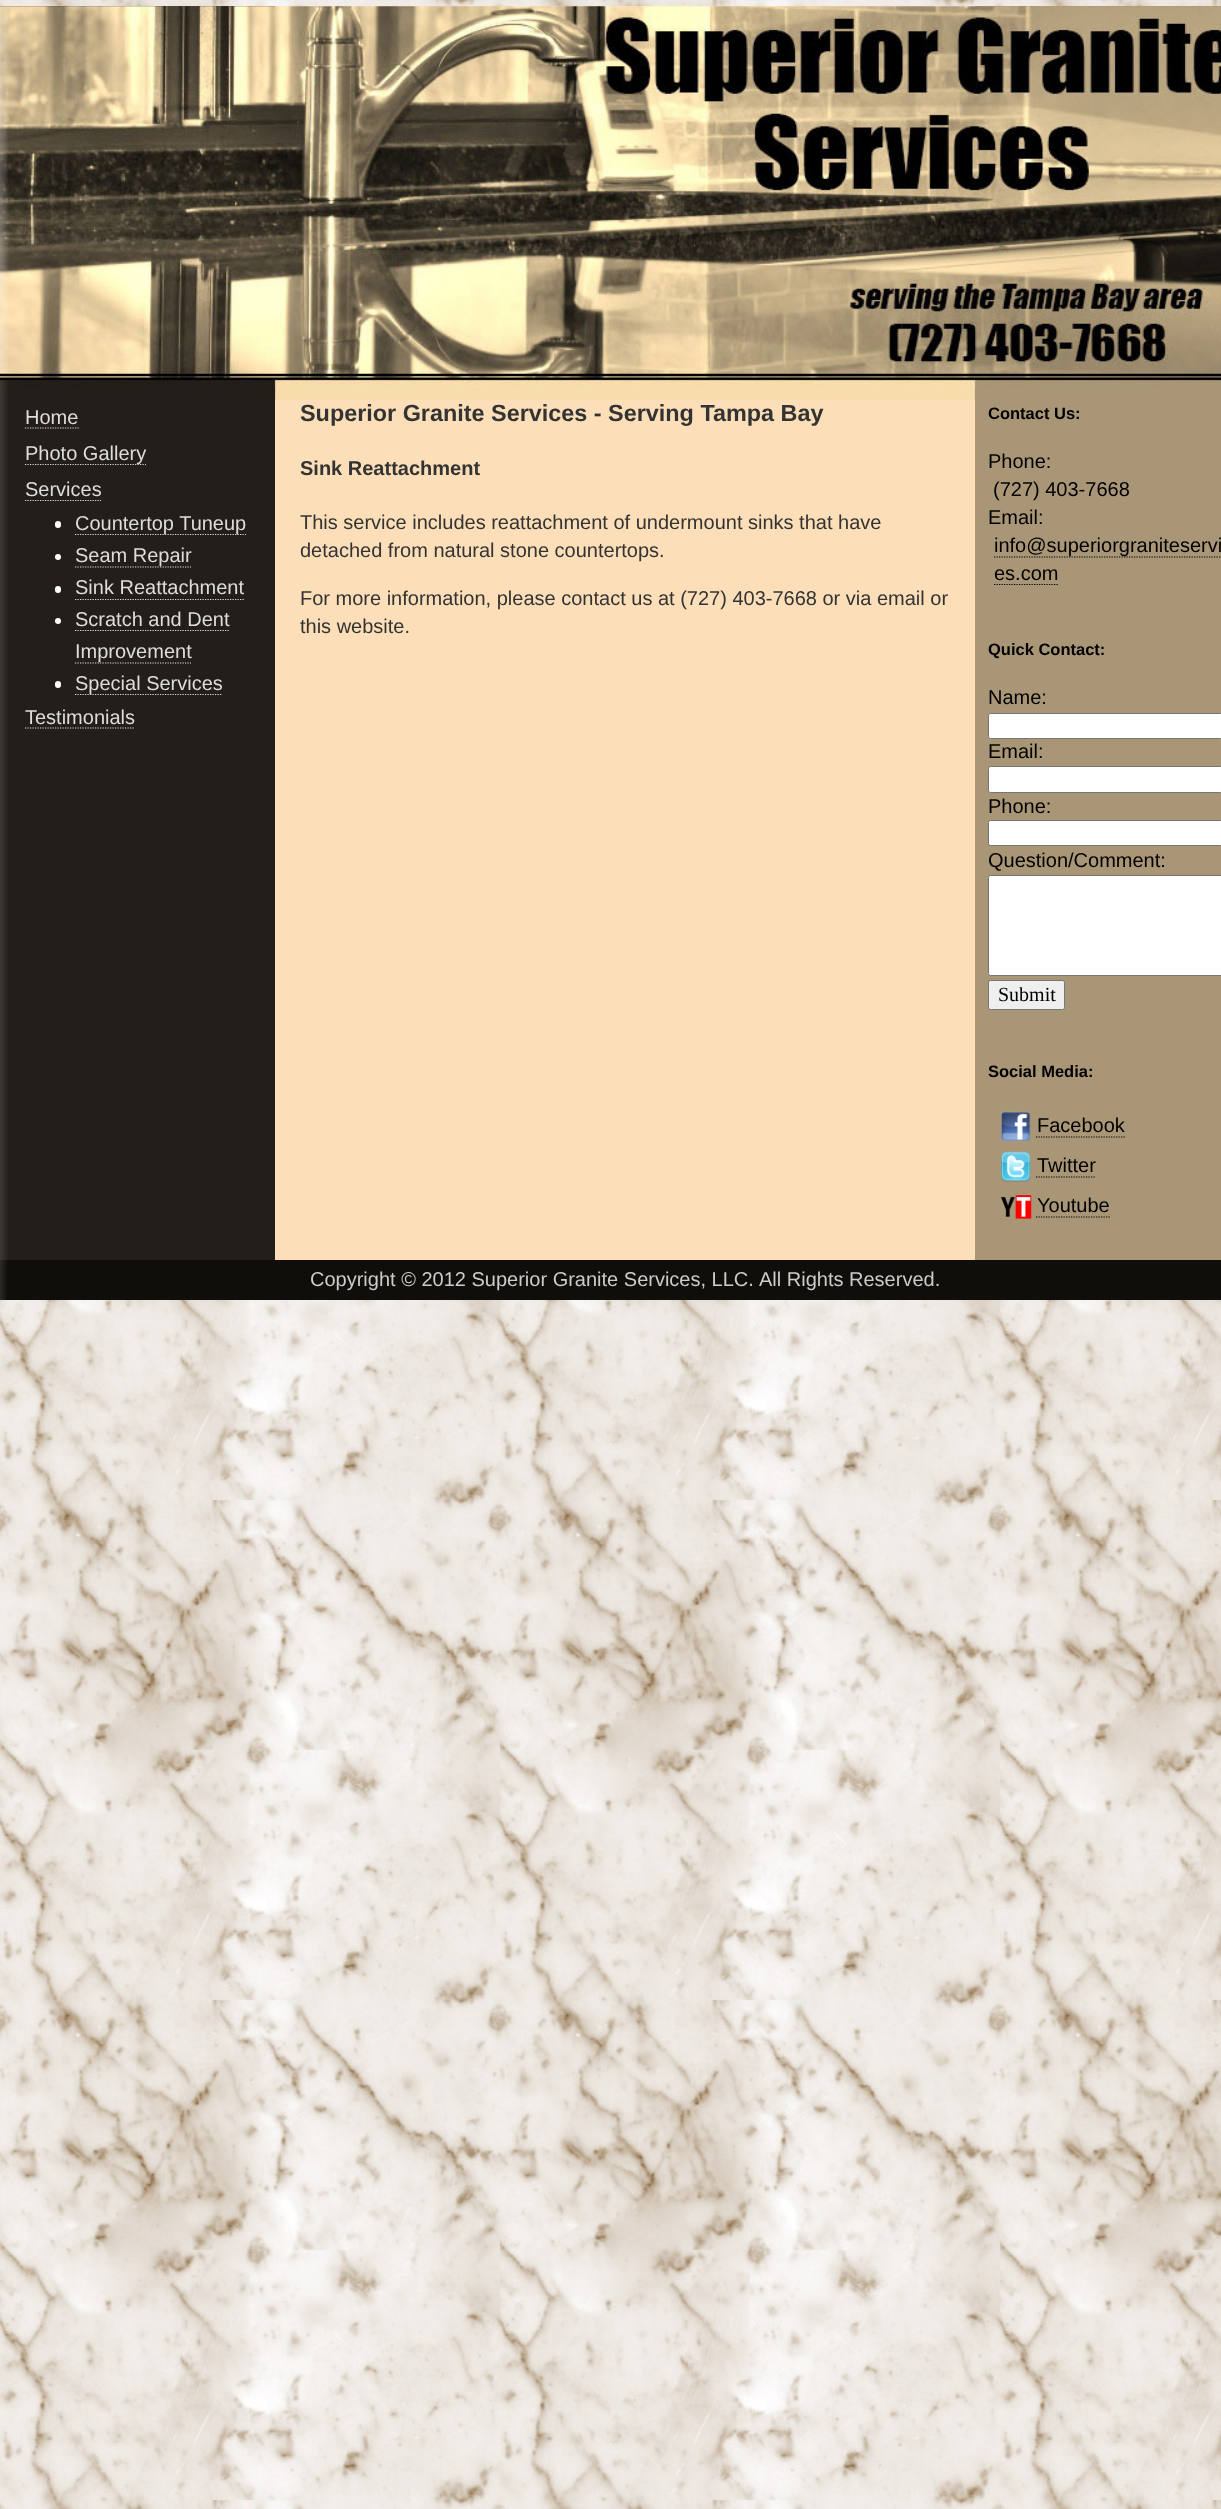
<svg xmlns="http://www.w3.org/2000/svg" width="1221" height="2509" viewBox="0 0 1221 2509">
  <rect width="100%" height="100%" fill="rgb(255,255,255)"/>
  <image x="0" y="0" width="1221" height="2509" href="pic1.png"/>
  <rect x="0" y="6" width="975" height="1254" fill="rgb(252,222,184)"/>
  <rect x="975" y="6" width="246" height="1254" fill="rgb(169,150,118)"/>
  <image x="0" y="6" width="275" height="1254" href="pic2.png"/>
  <image x="0" y="6" width="1221" height="394" href="pic3.png"/>
  <image x="274" y="387" width="1" height="13" href="pic4.png"/>
  <text x="25" y="424" font-family="Liberation Sans" font-size="20" fill="rgb(221,221,221)">Home</text>
  <path d="M25 428H79" fill="none" stroke="rgb(221,221,221)" stroke-width="1.2" stroke-dasharray="1.25 1.25"/>
  <path d="M25 464.5H146" fill="none" stroke="rgb(221,221,221)" stroke-width="1.2" stroke-dasharray="1.25 1.25"/>
  <g font-family="Liberation Sans" font-size="20" fill="rgb(221,221,221)">
    <text>
      <tspan x="25" y="460">Photo Gallery</tspan>
      <tspan x="25" y="496">Services</tspan>
    </text>
  </g>
  <path d="M25 500.5H101" fill="none" stroke="rgb(221,221,221)" stroke-width="1.2" stroke-dasharray="1.25 1.25"/>
  <rect x="55" y="521" width="6" height="7" rx="3" fill="rgb(255,255,255)"/>
  <path d="M75 534.5H246" fill="none" stroke="rgb(221,221,221)" stroke-width="1.2" stroke-dasharray="1.25 1.25"/>
  <text x="75" y="530" font-family="Liberation Sans" font-size="20" fill="rgb(221,221,221)">Countertop Tuneup</text>
  <circle cx="58" cy="557" r="3" fill="rgb(255,255,255)"/>
  <path d="M75 567H191" fill="none" stroke="rgb(221,221,221)" stroke-width="1.2" stroke-dasharray="1.25 1.25"/>
  <text x="75" y="562" font-family="Liberation Sans" font-size="20" fill="rgb(221,221,221)">Seam Repair</text>
  <rect x="55" y="586" width="6" height="7" rx="3" fill="rgb(255,255,255)"/>
  <text x="75" y="594" font-family="Liberation Sans" font-size="20" fill="rgb(221,221,221)">Sink Reattachment</text>
  <path d="M75 599.5H244" fill="none" stroke="rgb(221,221,221)" stroke-width="1.2" stroke-dasharray="1.25 1.25"/>
  <circle cx="58" cy="621" r="3" fill="rgb(255,255,255)"/>
  <text x="75" y="626" font-family="Liberation Sans" font-size="20" fill="rgb(221,221,221)">Scratch and Dent</text>
  <path d="M75 630.5H230" fill="none" stroke="rgb(221,221,221)" stroke-width="1.2" stroke-dasharray="1.25 1.25"/>
  <path d="M75 663H191" fill="none" stroke="rgb(221,221,221)" stroke-width="1.2" stroke-dasharray="1.25 1.25"/>
  <text x="75" y="658" font-family="Liberation Sans" font-size="20" fill="rgb(221,221,221)">Improvement</text>
  <rect x="55" y="681" width="6" height="7" rx="3" fill="rgb(255,255,255)"/>
  <path d="M75 694.5H222.5" fill="none" stroke="rgb(221,221,221)" stroke-width="1.2" stroke-dasharray="1.25 1.25"/>
  <g font-family="Liberation Sans" font-size="20" fill="rgb(221,221,221)">
    <text x="75" y="690">Special Services</text>
    <text x="25" y="724">Testimonials</text>
  </g>
  <path d="M25 728H135" fill="none" stroke="rgb(221,221,221)" stroke-width="1.2" stroke-dasharray="1.25 1.25"/>
  <text x="300" y="421" font-family="Liberation Sans" font-size="23.4" font-weight="bold" fill="rgb(51,51,51)">Superior Granite Services - Serving Tampa Bay</text>
  <text x="300" y="475" font-family="Liberation Sans" font-size="20" font-weight="bold" fill="rgb(51,51,51)">Sink Reattachment</text>
  <g font-family="Liberation Sans" font-size="20" fill="rgb(51,51,51)">
    <text>
      <tspan x="300" y="529">This service includes reattachment of undermount sinks that have</tspan>
      <tspan x="300" y="557">detached from natural stone countertops.</tspan>
    </text>
    <text>
      <tspan x="300" y="605">For more information, please contact us at (727) 403-7668 or via email or</tspan>
      <tspan x="300" y="633">this website.</tspan>
    </text>
  </g>
  <image x="975" y="387" width="1" height="13" href="pic5.png"/>
  <text x="988" y="419" font-family="Liberation Sans" font-size="16.5" font-weight="bold" fill="rgb(0,0,0)">Contact Us:</text>
  <g font-family="Liberation Sans" font-size="20" fill="rgb(0,0,0)">
    <text x="988" y="468">Phone:</text>
    <text x="993" y="496">(727) 403-7668</text>
    <text x="988" y="524">Email:</text>
  </g>
  <path d="M994 557H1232.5" fill="none" stroke="rgb(0,0,0)" stroke-width="1.2" stroke-dasharray="1.25 1.25"/>
  <g font-family="Liberation Sans" font-size="20" fill="rgb(0,0,0)">
    <text>
      <tspan x="994" y="552">info@superiorgraniteservi</tspan>
      <tspan x="994" y="580">es.com</tspan>
    </text>
  </g>
  <path d="M994 584.5H1059" fill="none" stroke="rgb(0,0,0)" stroke-width="1.2" stroke-dasharray="1.25 1.25"/>
  <text x="988" y="655" font-family="Liberation Sans" font-size="16.5" font-weight="bold" fill="rgb(0,0,0)">Quick Contact:</text>
  <text x="988" y="704" font-family="Liberation Sans" font-size="20" fill="rgb(0,0,0)">Name:</text>
  <rect x="988.5" y="713.5" width="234" height="25" rx="2" fill="rgb(255,255,255)" stroke="rgb(118,118,118)"/>
  <text x="988" y="758" font-family="Liberation Sans" font-size="20" fill="rgb(0,0,0)">Email:</text>
  <rect x="988.5" y="766.5" width="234" height="26" rx="2" fill="rgb(255,255,255)" stroke="rgb(118,118,118)"/>
  <text x="988" y="813" font-family="Liberation Sans" font-size="20" fill="rgb(0,0,0)">Phone:</text>
  <rect x="988.5" y="820.5" width="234" height="25" rx="2" fill="rgb(255,255,255)" stroke="rgb(118,118,118)"/>
  <text x="988" y="867" font-family="Liberation Sans" font-size="20" fill="rgb(0,0,0)">Question/Comment:</text>
  <rect x="988.5" y="875.5" width="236" height="100" rx="2" fill="rgb(255,255,255)" stroke="rgb(118,118,118)"/>
  <rect x="988.5" y="980.5" width="76" height="29" rx="2" fill="rgb(239,239,239)" stroke="rgb(118,118,118)"/>
  <text x="998" y="1001" font-family="Liberation Serif" font-size="20" fill="rgb(0,0,0)">Submit</text>
  <text x="988" y="1077" font-family="Liberation Sans" font-size="16.5" font-weight="bold" fill="rgb(0,0,0)">Social Media:</text>
  <image x="1001" y="1111" width="30" height="31" href="pic6.png"/>
  <text x="1037" y="1132" font-family="Liberation Sans" font-size="20" fill="rgb(0,0,0)">Facebook</text>
  <path d="M1036 1137H1125" fill="none" stroke="rgb(0,0,0)" stroke-width="1.2" stroke-dasharray="1.25 1.25"/>
  <image x="1001" y="1151" width="30" height="31" href="pic7.png"/>
  <text x="1037" y="1172" font-family="Liberation Sans" font-size="20" fill="rgb(0,0,0)">Twitter</text>
  <path d="M1036 1177H1096" fill="none" stroke="rgb(0,0,0)" stroke-width="1.2" stroke-dasharray="1.25 1.25"/>
  <image x="1001" y="1195" width="31" height="24" href="pic8.png"/>
  <text x="1037" y="1212" font-family="Liberation Sans" font-size="20" fill="rgb(0,0,0)">Youtube</text>
  <path d="M1036 1217H1110" fill="none" stroke="rgb(0,0,0)" stroke-width="1.2" stroke-dasharray="1.25 1.25"/>
  <image x="0" y="1260" width="1221" height="40" href="pic9.png"/>
  <g font-family="Liberation Sans" font-size="20" fill="rgb(204,204,204)">
    <text x="310" y="1286">Copyright © 2012 Superior Granite Services, LLC.</text>
    <text x="759" y="1286">All Rights Reserved.</text>
  </g>
</svg>
